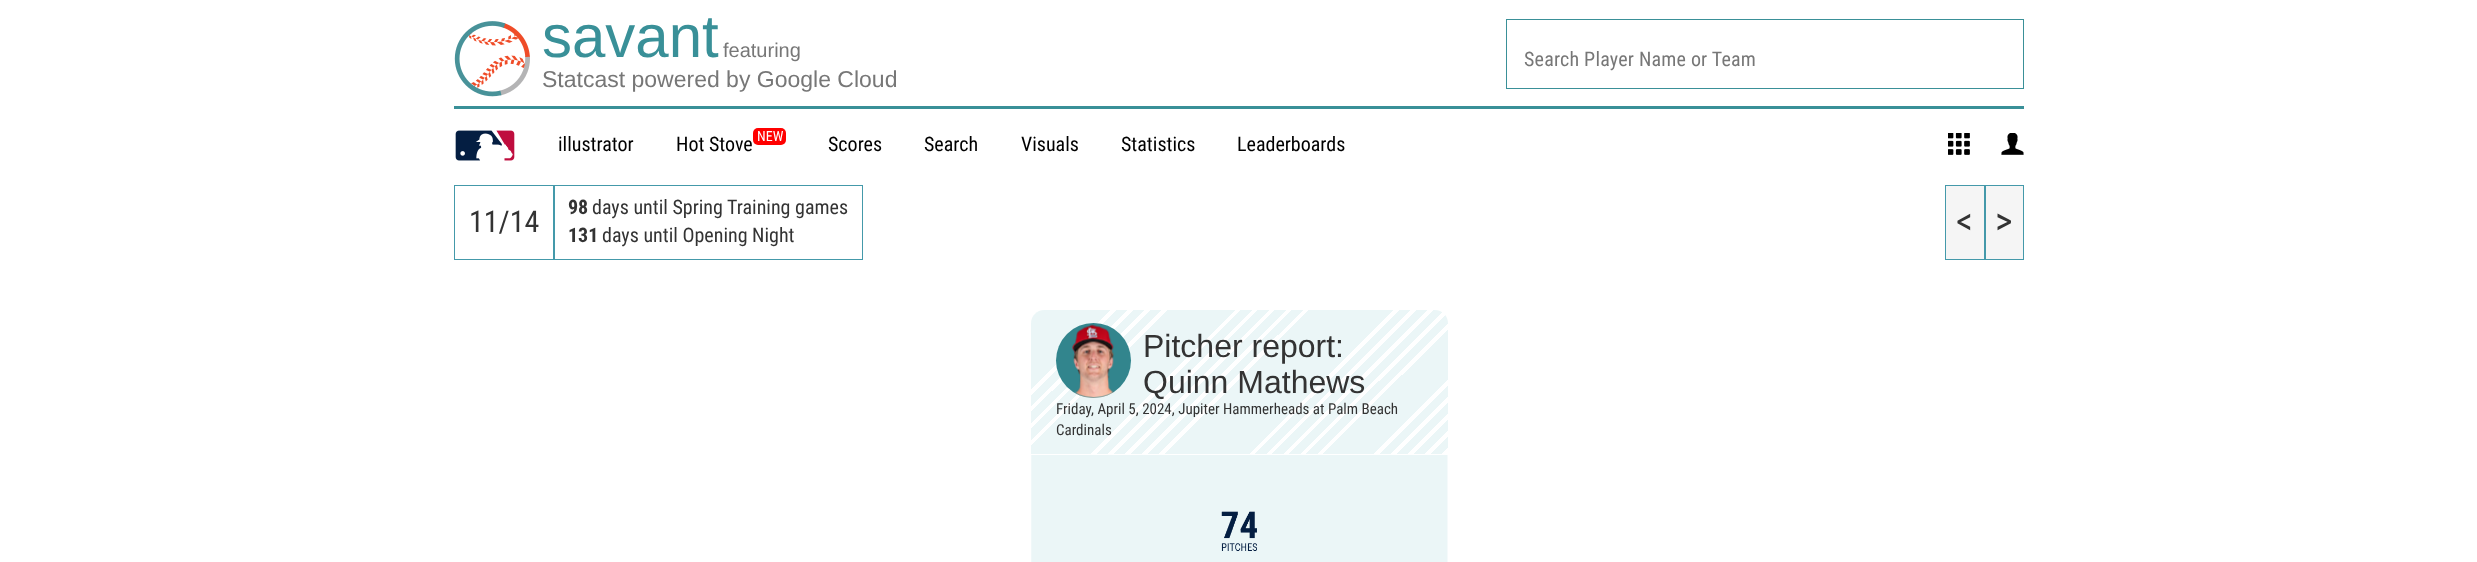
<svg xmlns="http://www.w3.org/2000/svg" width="2477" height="562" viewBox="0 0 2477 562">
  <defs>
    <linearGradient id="g1" gradientUnits="userSpaceOnUse" x1="1379" y1="522" x2="1097" y2="239"><stop offset="0" stop-color="rgb(255,255,255)"/><stop offset="0.01" stop-color="rgb(255,255,255)"/><stop offset="0.01" stop-color="rgb(235,246,247)"/><stop offset="0.03" stop-color="rgb(235,246,247)"/><stop offset="0.03" stop-color="rgb(255,255,255)"/><stop offset="0.04" stop-color="rgb(255,255,255)"/><stop offset="0.04" stop-color="rgb(235,246,247)"/><stop offset="0.06" stop-color="rgb(235,246,247)"/><stop offset="0.06" stop-color="rgb(255,255,255)"/><stop offset="0.07" stop-color="rgb(255,255,255)"/><stop offset="0.07" stop-color="rgb(235,246,247)"/><stop offset="0.09" stop-color="rgb(235,246,247)"/><stop offset="0.09" stop-color="rgb(255,255,255)"/><stop offset="0.1" stop-color="rgb(255,255,255)"/><stop offset="0.1" stop-color="rgb(235,246,247)"/><stop offset="0.12" stop-color="rgb(235,246,247)"/><stop offset="0.12" stop-color="rgb(255,255,255)"/><stop offset="0.13" stop-color="rgb(255,255,255)"/><stop offset="0.13" stop-color="rgb(235,246,247)"/><stop offset="0.16" stop-color="rgb(235,246,247)"/><stop offset="0.16" stop-color="rgb(255,255,255)"/><stop offset="0.16" stop-color="rgb(255,255,255)"/><stop offset="0.16" stop-color="rgb(235,246,247)"/><stop offset="0.19" stop-color="rgb(235,246,247)"/><stop offset="0.19" stop-color="rgb(255,255,255)"/><stop offset="0.19" stop-color="rgb(255,255,255)"/><stop offset="0.19" stop-color="rgb(235,246,247)"/><stop offset="0.22" stop-color="rgb(235,246,247)"/><stop offset="0.22" stop-color="rgb(255,255,255)"/><stop offset="0.23" stop-color="rgb(255,255,255)"/><stop offset="0.23" stop-color="rgb(235,246,247)"/><stop offset="0.25" stop-color="rgb(235,246,247)"/><stop offset="0.25" stop-color="rgb(255,255,255)"/><stop offset="0.26" stop-color="rgb(255,255,255)"/><stop offset="0.26" stop-color="rgb(235,246,247)"/><stop offset="0.28" stop-color="rgb(235,246,247)"/><stop offset="0.28" stop-color="rgb(255,255,255)"/><stop offset="0.29" stop-color="rgb(255,255,255)"/><stop offset="0.29" stop-color="rgb(235,246,247)"/><stop offset="0.31" stop-color="rgb(235,246,247)"/><stop offset="0.31" stop-color="rgb(255,255,255)"/><stop offset="0.32" stop-color="rgb(255,255,255)"/><stop offset="0.32" stop-color="rgb(235,246,247)"/><stop offset="0.34" stop-color="rgb(235,246,247)"/><stop offset="0.34" stop-color="rgb(255,255,255)"/><stop offset="0.35" stop-color="rgb(255,255,255)"/><stop offset="0.35" stop-color="rgb(235,246,247)"/><stop offset="0.38" stop-color="rgb(235,246,247)"/><stop offset="0.38" stop-color="rgb(255,255,255)"/><stop offset="0.38" stop-color="rgb(255,255,255)"/><stop offset="0.38" stop-color="rgb(235,246,247)"/><stop offset="0.41" stop-color="rgb(235,246,247)"/><stop offset="0.41" stop-color="rgb(255,255,255)"/><stop offset="0.41" stop-color="rgb(255,255,255)"/><stop offset="0.41" stop-color="rgb(235,246,247)"/><stop offset="0.44" stop-color="rgb(235,246,247)"/><stop offset="0.44" stop-color="rgb(255,255,255)"/><stop offset="0.44" stop-color="rgb(255,255,255)"/><stop offset="0.44" stop-color="rgb(235,246,247)"/><stop offset="0.47" stop-color="rgb(235,246,247)"/><stop offset="0.47" stop-color="rgb(255,255,255)"/><stop offset="0.47" stop-color="rgb(255,255,255)"/><stop offset="0.47" stop-color="rgb(235,246,247)"/><stop offset="0.5" stop-color="rgb(235,246,247)"/><stop offset="0.5" stop-color="rgb(255,255,255)"/><stop offset="0.51" stop-color="rgb(255,255,255)"/><stop offset="0.51" stop-color="rgb(235,246,247)"/><stop offset="0.53" stop-color="rgb(235,246,247)"/><stop offset="0.53" stop-color="rgb(255,255,255)"/><stop offset="0.54" stop-color="rgb(255,255,255)"/><stop offset="0.54" stop-color="rgb(235,246,247)"/><stop offset="0.56" stop-color="rgb(235,246,247)"/><stop offset="0.56" stop-color="rgb(255,255,255)"/><stop offset="0.57" stop-color="rgb(255,255,255)"/><stop offset="0.57" stop-color="rgb(235,246,247)"/><stop offset="0.59" stop-color="rgb(235,246,247)"/><stop offset="0.59" stop-color="rgb(255,255,255)"/><stop offset="0.6" stop-color="rgb(255,255,255)"/><stop offset="0.6" stop-color="rgb(235,246,247)"/><stop offset="0.62" stop-color="rgb(235,246,247)"/><stop offset="0.62" stop-color="rgb(255,255,255)"/><stop offset="0.63" stop-color="rgb(255,255,255)"/><stop offset="0.63" stop-color="rgb(235,246,247)"/><stop offset="0.66" stop-color="rgb(235,246,247)"/><stop offset="0.66" stop-color="rgb(255,255,255)"/><stop offset="0.66" stop-color="rgb(255,255,255)"/><stop offset="0.66" stop-color="rgb(235,246,247)"/><stop offset="0.69" stop-color="rgb(235,246,247)"/><stop offset="0.69" stop-color="rgb(255,255,255)"/><stop offset="0.69" stop-color="rgb(255,255,255)"/><stop offset="0.69" stop-color="rgb(235,246,247)"/><stop offset="0.72" stop-color="rgb(235,246,247)"/><stop offset="0.72" stop-color="rgb(255,255,255)"/><stop offset="0.72" stop-color="rgb(255,255,255)"/><stop offset="0.72" stop-color="rgb(235,246,247)"/><stop offset="0.75" stop-color="rgb(235,246,247)"/><stop offset="0.75" stop-color="rgb(255,255,255)"/><stop offset="0.76" stop-color="rgb(255,255,255)"/><stop offset="0.76" stop-color="rgb(235,246,247)"/><stop offset="0.78" stop-color="rgb(235,246,247)"/><stop offset="0.78" stop-color="rgb(255,255,255)"/><stop offset="0.79" stop-color="rgb(255,255,255)"/><stop offset="0.79" stop-color="rgb(235,246,247)"/><stop offset="0.81" stop-color="rgb(235,246,247)"/><stop offset="0.81" stop-color="rgb(255,255,255)"/><stop offset="0.82" stop-color="rgb(255,255,255)"/><stop offset="0.82" stop-color="rgb(235,246,247)"/><stop offset="0.84" stop-color="rgb(235,246,247)"/><stop offset="0.84" stop-color="rgb(255,255,255)"/><stop offset="0.85" stop-color="rgb(255,255,255)"/><stop offset="0.85" stop-color="rgb(235,246,247)"/><stop offset="0.88" stop-color="rgb(235,246,247)"/><stop offset="0.88" stop-color="rgb(255,255,255)"/><stop offset="0.88" stop-color="rgb(255,255,255)"/><stop offset="0.88" stop-color="rgb(235,246,247)"/><stop offset="0.91" stop-color="rgb(235,246,247)"/><stop offset="0.91" stop-color="rgb(255,255,255)"/><stop offset="0.91" stop-color="rgb(255,255,255)"/><stop offset="0.91" stop-color="rgb(235,246,247)"/><stop offset="0.94" stop-color="rgb(235,246,247)"/><stop offset="0.94" stop-color="rgb(255,255,255)"/><stop offset="0.94" stop-color="rgb(255,255,255)"/><stop offset="0.94" stop-color="rgb(235,246,247)"/><stop offset="0.97" stop-color="rgb(235,246,247)"/><stop offset="0.97" stop-color="rgb(255,255,255)"/><stop offset="0.97" stop-color="rgb(255,255,255)"/><stop offset="0.97" stop-color="rgb(235,246,247)"/><stop offset="1" stop-color="rgb(235,246,247)"/></linearGradient>
  </defs>
  <rect width="100%" height="100%" fill="rgb(255,255,255)"/>
  <rect x="454" y="106" width="1570" height="3" fill="rgb(57,144,152)"/>
  <image x="454" y="21" width="76" height="76" href="pic1.png"/>
  <text x="542" y="57" font-family="Liberation Sans" font-size="60" fill="rgb(57,144,152)">savant</text>
  <text x="723" y="57" font-family="Liberation Sans" font-size="20" fill="rgb(119,119,119)">featuring</text>
  <text x="542" y="87" font-family="Liberation Sans" font-size="23" fill="rgb(119,119,119)">Statcast powered by Google Cloud</text>
  <rect x="1506.5" y="19.5" width="517" height="69" fill="none" stroke="rgb(58,144,152)"/>
  <text x="1524" y="66" font-family="Roboto Condensed" font-size="20" letter-spacing="0.2" fill="rgb(119,119,119)">Search Player Name or Team</text>
  <image x="455" y="130" width="60" height="31" href="pic2.png"/>
  <g font-family="Roboto Condensed" font-size="20" fill="rgb(0,0,0)">
    <text x="558" y="151">illustrator</text>
    <text x="676" y="151">Hot Stove</text>
  </g>
  <rect x="753" y="128" width="33" height="17" rx="5" fill="rgb(255,0,0)"/>
  <text x="757" y="141" font-family="Roboto Condensed" font-size="14" fill="rgb(255,255,255)">NEW</text>
  <g font-family="Roboto Condensed" font-size="20" fill="rgb(0,0,0)">
    <text x="828" y="151">Scores</text>
    <text x="924" y="151">Search</text>
    <text x="1021" y="151">Visuals</text>
    <text x="1121" y="151">Statistics</text>
    <text x="1237" y="151">Leaderboards</text>
  </g>
  <image x="1948" y="133" width="22" height="22" href="pic3.png"/>
  <image x="2001" y="133" width="23" height="22" href="pic4.png"/>
  <rect x="454.5" y="185.5" width="99" height="74" fill="none" stroke="rgb(68,153,170)"/>
  <text x="469" y="232" font-family="Roboto Condensed" font-size="30" fill="rgb(51,51,51)">11/14</text>
  <rect x="554.5" y="185.5" width="308" height="74" fill="none" stroke="rgb(68,153,170)"/>
  <text x="568" y="214" font-family="Roboto Condensed" font-size="20" font-weight="bold" fill="rgb(51,51,51)">98</text>
  <text x="592" y="214" font-family="Roboto Condensed" font-size="20" fill="rgb(51,51,51)">days until Spring Training games</text>
  <text x="568" y="242" font-family="Roboto Condensed" font-size="20" font-weight="bold" fill="rgb(51,51,51)">131</text>
  <text x="602" y="242" font-family="Roboto Condensed" font-size="20" fill="rgb(51,51,51)">days until Opening Night</text>
  <rect x="1945.5" y="185.5" width="39" height="74" fill="rgb(245,245,245)" stroke="rgb(68,153,170)"/>
  <text x="1956" y="234" font-family="Roboto Condensed" font-size="38" fill="rgb(51,51,51)">&lt;</text>
  <rect x="1985.5" y="185.5" width="38" height="74" fill="rgb(245,245,245)" stroke="rgb(68,153,170)"/>
  <text x="1995" y="234" font-family="Roboto Condensed" font-size="38" fill="rgb(51,51,51)">&gt;</text>
  <path d="M1044 310H1435C1442 310 1448 316 1448 323V454H1031V323C1031 316 1037 310 1044 310Z" fill="url(#g1)"/>
  <circle cx="1093.5" cy="360.5" r="37.5" fill="rgb(50,133,141)"/>
  <image x="1072" y="324" width="42" height="74" href="pic5.png"/>
  <g font-family="Liberation Sans" font-size="32" fill="rgb(51,51,51)">
    <text>
      <tspan x="1143" y="357">Pitcher report:</tspan>
      <tspan x="1143" y="393">Quinn Mathews</tspan>
    </text>
  </g>
  <g font-family="Roboto Condensed" font-size="15" fill="rgb(51,51,51)">
    <text>
      <tspan x="1056" y="414">Friday, April 5, 2024, Jupiter Hammerheads at Palm Beach</tspan>
      <tspan x="1056" y="435">Cardinals</tspan>
    </text>
  </g>
  <image x="1031" y="455" width="417" height="107" href="pic6.png"/>
</svg>
